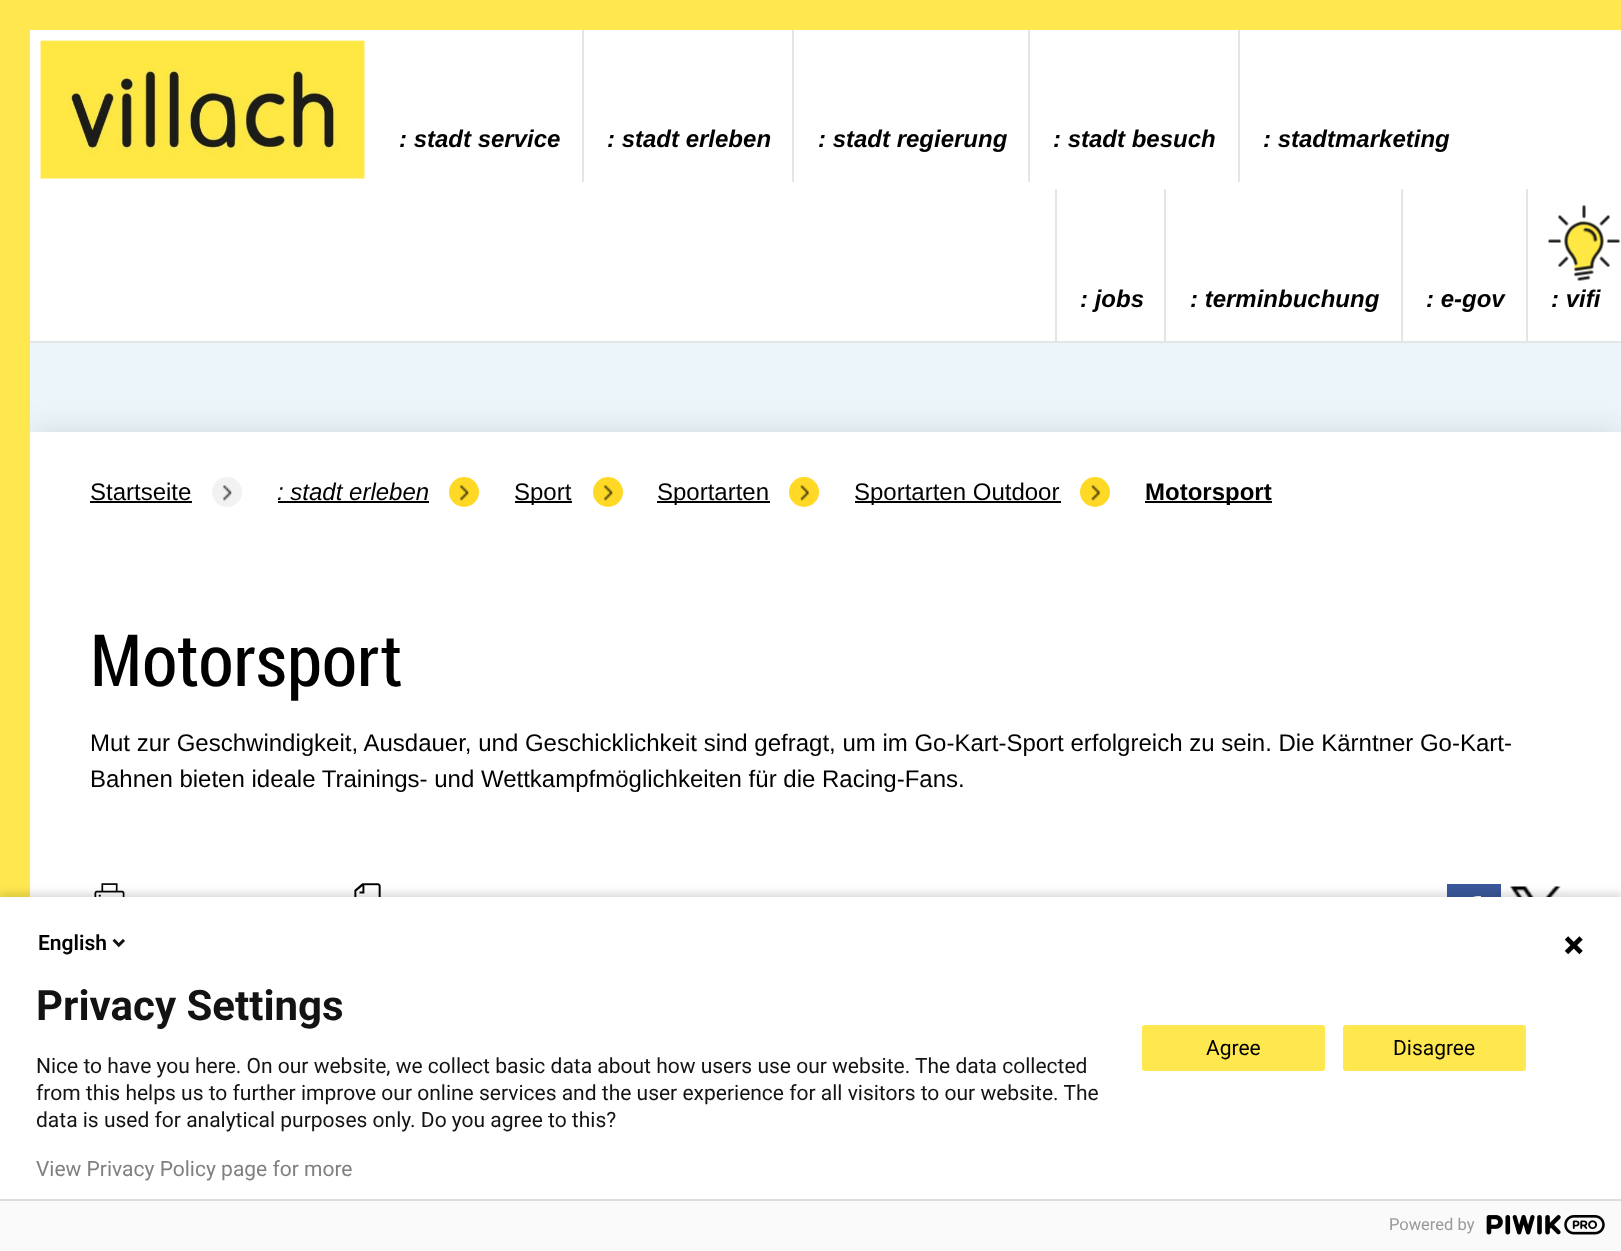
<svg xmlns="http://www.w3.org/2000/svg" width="1621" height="1251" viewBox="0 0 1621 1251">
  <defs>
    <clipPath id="clip1"><rect x="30" y="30" width="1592" height="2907"/></clipPath>
  </defs>
  <rect width="100%" height="100%" fill="rgb(255,232,79)"/>
  <rect x="30" y="343" width="1591" height="89" fill="rgb(236,245,249)"/>
  <rect x="30" y="30" width="1591" height="311" fill="rgb(255,255,255)"/>
  <rect x="30" y="341" width="1591" height="2" fill="rgb(229,229,229)"/>
  <image x="40" y="40" width="325" height="139" href="pic1.png"/>
  <rect x="582" y="30" width="2" height="152" fill="rgb(229,229,229)"/>
  <text x="399" y="147" font-family="Liberation Sans" font-size="24" font-weight="bold" font-style="italic" fill="rgb(0,0,0)">: stadt service</text>
  <rect x="792" y="30" width="2" height="152" fill="rgb(229,229,229)"/>
  <text x="607" y="147" font-family="Liberation Sans" font-size="24" font-weight="bold" font-style="italic" fill="rgb(0,0,0)">: stadt erleben</text>
  <rect x="1028" y="30" width="2" height="152" fill="rgb(229,229,229)"/>
  <text x="818" y="147" font-family="Liberation Sans" font-size="24" font-weight="bold" font-style="italic" fill="rgb(0,0,0)">: stadt regierung</text>
  <rect x="1238" y="30" width="2" height="152" fill="rgb(229,229,229)"/>
  <g font-family="Liberation Sans" font-size="24" font-weight="bold" font-style="italic" fill="rgb(0,0,0)">
    <text x="1053" y="147">: stadt besuch</text>
    <text x="1263" y="147">: stadtmarketing</text>
  </g>
  <rect x="1055" y="189" width="2" height="152" fill="rgb(229,229,229)"/>
  <rect x="1164" y="189" width="2" height="152" fill="rgb(229,229,229)"/>
  <text x="1080" y="307" font-family="Liberation Sans" font-size="24" font-weight="bold" font-style="italic" fill="rgb(0,0,0)">: jobs</text>
  <rect x="1401" y="189" width="2" height="152" fill="rgb(229,229,229)"/>
  <text x="1190" y="307" font-family="Liberation Sans" font-size="24" font-weight="bold" font-style="italic" fill="rgb(0,0,0)">: terminbuchung</text>
  <rect x="1526" y="189" width="2" height="152" fill="rgb(229,229,229)"/>
  <text x="1426" y="307" font-family="Liberation Sans" font-size="24" font-weight="bold" font-style="italic" fill="rgb(0,0,0)">: e-gov</text>
  <image x="1548" y="205" width="72" height="76" href="pic2.png"/>
  <text x="1551" y="307" font-family="Liberation Sans" font-size="24" font-weight="bold" font-style="italic" fill="rgb(0,0,0)">: vifi</text>
  <g clip-path="url(#clip1)">
    <rect x="30" y="432" width="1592" height="587" fill="rgba(0,0,0,0.11)" filter="blur(16px)"/>
  </g>
  <rect x="30" y="432" width="1591" height="465" fill="rgb(255,255,255)"/>
  <text x="90" y="500" font-family="Liberation Sans" font-size="24" fill="rgb(0,0,0)">Startseite</text>
  <rect x="90" y="501" width="102" height="2" fill="rgb(0,0,0)"/>
  <circle cx="227" cy="492" r="15" fill="rgb(242,242,242)"/>
  <image x="222" y="485" width="10" height="17" href="pic3.png"/>
  <text x="277" y="500" font-family="Liberation Sans" font-size="24" font-style="italic" fill="rgb(0,0,0)">: stadt erleben</text>
  <rect x="278" y="501" width="151" height="2" fill="rgb(0,0,0)"/>
  <circle cx="464" cy="492" r="15" fill="rgb(255,217,37)"/>
  <image x="459" y="485" width="10" height="17" href="pic4.png"/>
  <rect x="515" y="501" width="57" height="2" fill="rgb(0,0,0)"/>
  <text x="514" y="500" font-family="Liberation Sans" font-size="24" fill="rgb(0,0,0)">Sport</text>
  <circle cx="608" cy="492" r="15" fill="rgb(255,217,37)"/>
  <image x="603" y="485" width="10" height="17" href="pic4.png"/>
  <rect x="657" y="501" width="113" height="2" fill="rgb(0,0,0)"/>
  <text x="657" y="500" font-family="Liberation Sans" font-size="24" fill="rgb(0,0,0)">Sportarten</text>
  <circle cx="804" cy="492" r="15" fill="rgb(255,217,37)"/>
  <image x="800" y="485" width="10" height="16" href="pic5.png"/>
  <rect x="855" y="501" width="206" height="2" fill="rgb(0,0,0)"/>
  <text x="854" y="500" font-family="Liberation Sans" font-size="24" fill="rgb(0,0,0)">Sportarten Outdoor</text>
  <circle cx="1095" cy="492" r="15" fill="rgb(255,217,37)"/>
  <image x="1091" y="485" width="10" height="16" href="pic5.png"/>
  <rect x="1145" y="501" width="127" height="2" fill="rgb(0,0,0)"/>
  <text x="1145" y="500" font-family="Liberation Sans" font-size="24" font-weight="bold" fill="rgb(0,0,0)">Motorsport</text>
  <text x="90" y="686" font-family="Roboto Condensed" font-size="72" fill="rgb(0,0,0)">Motorsport</text>
  <g font-family="Liberation Sans" font-size="24" fill="rgb(0,0,0)">
    <text>
      <tspan x="90" y="751">Mut zur Geschwindigkeit, Ausdauer, und Geschicklichkeit sind gefragt, um im Go-Kart-Sport erfolgreich zu sein. Die Kärntner Go-Kart-</tspan>
      <tspan x="90" y="787">Bahnen bieten ideale Trainings- und Wettkampfmöglichkeiten für die Racing-Fans.</tspan>
    </text>
  </g>
  <image x="94" y="883" width="31" height="14" href="pic6.png"/>
  <image x="354" y="883" width="27" height="14" href="pic7.png"/>
  <path d="M1470 926H1476V911H1480L1481 906H1476C1476 901 1476 901 1481 901V896C1472 896 1470 897 1470 906H1467V911H1470ZM1447 884H1501V938H1447Z" fill="rgb(58,88,155)" fill-rule="evenodd"/>
  <image x="1510" y="886" width="51" height="11" href="pic8.png"/>
  <rect x="-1" y="893" width="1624" height="357" fill="rgba(0,0,0,0.14)" filter="blur(4px)"/>
  <rect x="0" y="897" width="1621" height="302" fill="rgb(255,255,255)"/>
  <text x="38" y="950" font-family="Roboto" font-size="21" font-weight="600" fill="rgb(0,0,0)">English</text>
  <image x="112" y="938" width="13" height="10" href="pic9.png"/>
  <text x="36" y="1020" font-family="Roboto" font-size="42" font-weight="bold" fill="rgb(19,19,19)">Privacy Settings</text>
  <g font-family="Roboto" font-size="21" fill="rgb(19,19,19)">
    <text x="36" y="1073">Nice to have you here. On our website, we collect basic data about how users use our website.</text>
    <text x="915" y="1073">The data collected</text>
    <text>
      <tspan x="36" y="1100">from this helps us to further improve our online services and the user experience for all visitors to our website. The</tspan>
      <tspan x="36" y="1127">data is used for analytical purposes only. Do you agree to this?</tspan>
    </text>
  </g>
  <text x="36" y="1176" font-family="Roboto" font-size="21" fill="rgb(128,128,128)">View Privacy Policy page for more</text>
  <image x="1564" y="936" width="19" height="19" href="pic10.png"/>
  <rect x="1143" y="1026" width="181" height="44" rx="2" fill="rgb(255,232,79)" stroke="rgb(255,232,79)" stroke-width="2"/>
  <text x="1206" y="1055" font-family="Roboto" font-size="21" fill="rgb(0,0,0)">Agree</text>
  <rect x="1344" y="1026" width="181" height="44" rx="2" fill="rgb(255,232,79)" stroke="rgb(255,232,79)" stroke-width="2"/>
  <text x="1393" y="1055" font-family="Roboto" font-size="21" fill="rgb(0,0,0)">Disagree</text>
  <rect x="0" y="1201" width="1621" height="50" fill="rgb(250,250,250)"/>
  <rect x="0" y="1199" width="1621" height="2" fill="rgb(221,221,221)"/>
  <text x="1389" y="1230" font-family="Roboto" font-size="16.5" fill="rgb(153,153,153)">Powered by</text>
  <image x="1486" y="1215" width="119" height="20" href="pic11.png"/>
</svg>
